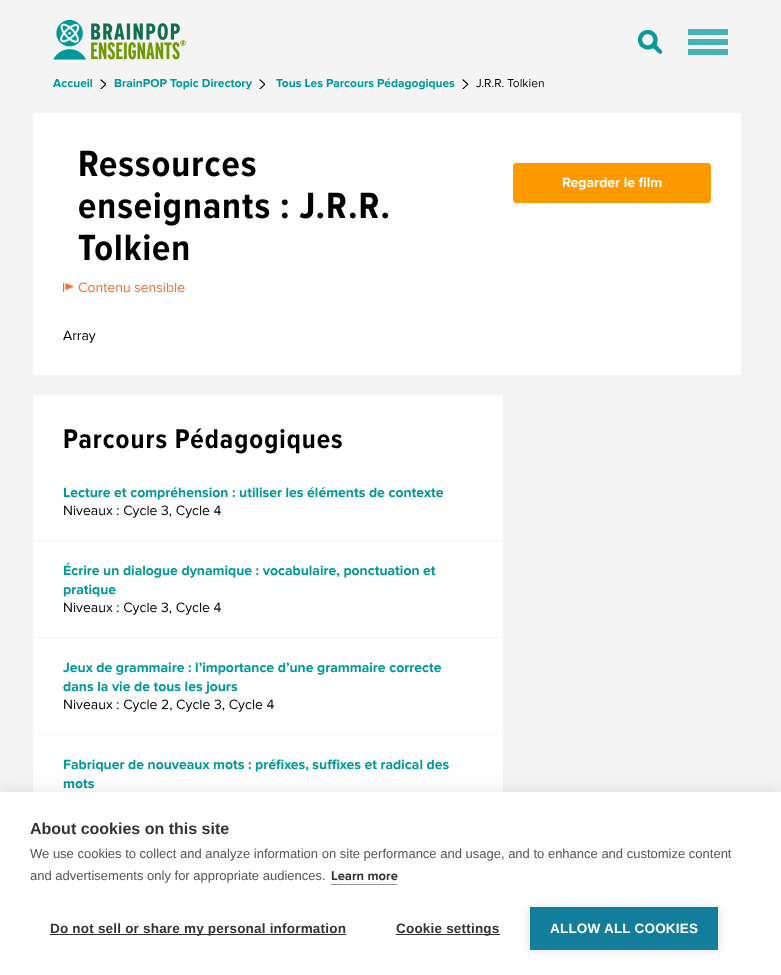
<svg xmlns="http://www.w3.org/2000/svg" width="781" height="975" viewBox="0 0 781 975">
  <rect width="100%" height="100%" fill="rgb(244,244,244)"/>
  <image x="53" y="20" width="133" height="40" href="pic1.png"/>
  <image x="638" y="30" width="25" height="25" href="pic2.png"/>
  <rect x="688" y="29" width="40" height="6" fill="rgb(70,178,178)"/>
  <rect x="688" y="39" width="40" height="6" fill="rgb(70,178,178)"/>
  <rect x="688" y="49" width="40" height="6" fill="rgb(70,178,178)"/>
  <text x="53" y="87" font-family="Proxima Nova" font-size="12" font-weight="bold" fill="rgb(0,153,153)">Accueil</text>
  <image x="100" y="79" width="6" height="10" href="pic3.png"/>
  <text x="114" y="87" font-family="Proxima Nova" font-size="12" font-weight="bold" fill="rgb(0,153,153)">BrainPOP Topic Directory</text>
  <image x="259" y="79" width="6" height="10" href="pic3.png"/>
  <text x="276" y="87" font-family="Proxima Nova" font-size="12" font-weight="bold" fill="rgb(0,153,153)">Tous Les Parcours Pédagogiques</text>
  <image x="462" y="79" width="6" height="10" href="pic3.png"/>
  <text x="476" y="87" font-family="Proxima Nova" font-size="12" fill="rgb(0,0,0)">J.R.R. Tolkien</text>
  <rect x="33" y="113" width="708" height="262" fill="rgb(255,255,255)"/>
  <g font-family="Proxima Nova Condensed" font-size="38" font-weight="bold" letter-spacing="1" fill="rgb(0,0,0)">
    <text>
      <tspan x="78" y="176">Ressources</tspan>
      <tspan x="78" y="218">enseignants : J.R.R.</tspan>
      <tspan x="78" y="260">Tolkien</tspan>
    </text>
  </g>
  <image x="63" y="283" width="11" height="9" href="pic4.png"/>
  <text x="78" y="292" font-family="Proxima Nova" font-size="14" fill="rgb(241,109,54)">Contenu sensible</text>
  <text x="63" y="340" font-family="Proxima Nova" font-size="14" fill="rgb(0,0,0)">Array</text>
  <rect x="513" y="163" width="198" height="40" rx="4" fill="rgb(255,153,0)"/>
  <text x="562" y="187" font-family="Proxima Nova" font-size="14" font-weight="bold" fill="rgb(255,255,255)">Regarder le film</text>
  <rect x="33" y="395" width="470" height="397" fill="rgb(255,255,255)"/>
  <text x="63" y="448" font-family="Proxima Nova Condensed" font-size="28" font-weight="bold" letter-spacing="1" fill="rgb(0,0,0)">Parcours Pédagogiques</text>
  <text x="63" y="497" font-family="Proxima Nova" font-size="14" font-weight="bold" fill="rgb(0,153,153)">Lecture et compréhension : utiliser les éléments de contexte</text>
  <text x="63" y="515" font-family="Proxima Nova" font-size="14" fill="rgb(0,0,0)">Niveaux : Cycle 3, Cycle 4</text>
  <rect x="33" y="540" width="470" height="1" fill="rgb(244,244,244)"/>
  <g font-family="Proxima Nova" font-size="14" font-weight="bold" fill="rgb(0,153,153)">
    <text>
      <tspan x="63" y="575">Écrire un dialogue dynamique : vocabulaire, ponctuation et</tspan>
      <tspan x="63" y="594">pratique</tspan>
    </text>
  </g>
  <text x="63" y="612" font-family="Proxima Nova" font-size="14" fill="rgb(0,0,0)">Niveaux : Cycle 3, Cycle 4</text>
  <rect x="33" y="637" width="470" height="1" fill="rgb(244,244,244)"/>
  <g font-family="Proxima Nova" font-size="14" font-weight="bold" fill="rgb(0,153,153)">
    <text>
      <tspan x="63" y="672">Jeux de grammaire : l’importance d’une grammaire correcte</tspan>
      <tspan x="63" y="691">dans la vie de tous les jours</tspan>
    </text>
  </g>
  <text x="63" y="709" font-family="Proxima Nova" font-size="14" fill="rgb(0,0,0)">Niveaux : Cycle 2, Cycle 3, Cycle 4</text>
  <rect x="33" y="734" width="470" height="1" fill="rgb(244,244,244)"/>
  <g font-family="Proxima Nova" font-size="14" font-weight="bold" fill="rgb(0,153,153)">
    <text>
      <tspan x="63" y="769">Fabriquer de nouveaux mots : préfixes, suffixes et radical des</tspan>
      <tspan x="63" y="788">mots</tspan>
    </text>
  </g>
  <rect x="0" y="792" width="781" height="183" fill="rgba(0,0,0,0.1)" filter="blur(10px)"/>
  <rect x="0" y="792" width="781" height="183" fill="rgb(255,255,255)"/>
  <text x="30" y="834" font-family="Liberation Sans" font-size="16" font-weight="bold" fill="rgb(51,51,51)">About cookies on this site</text>
  <g font-family="Liberation Sans" font-size="13" fill="rgb(85,85,85)">
    <text>
      <tspan x="30" y="858">We use cookies to collect and analyze information on site performance and usage, and to enhance and customize content</tspan>
      <tspan x="30" y="880">and advertisements only for appropriate audiences.</tspan>
    </text>
  </g>
  <text x="331" y="880" font-family="Proxima Nova" font-size="13" font-weight="bold" fill="rgb(51,51,51)">Learn more</text>
  <rect x="331" y="884" width="66" height="1" fill="rgb(153,153,153)"/>
  <rect x="50" y="934" width="296" height="1" fill="rgb(51,51,51)"/>
  <text x="50" y="933" font-family="Liberation Sans" font-size="13.5" font-weight="bold" letter-spacing="0.2" fill="rgb(51,51,51)">Do not sell or share my personal information</text>
  <rect x="396" y="934" width="104" height="1" fill="rgb(51,51,51)"/>
  <text x="396" y="933" font-family="Liberation Sans" font-size="13.5" font-weight="bold" letter-spacing="0.2" fill="rgb(51,51,51)">Cookie settings</text>
  <rect x="530" y="907" width="188" height="43" fill="rgba(0,0,0,0.12)" filter="blur(5px)"/>
  <rect x="530" y="907" width="188" height="43" fill="rgb(18,126,155)"/>
  <text x="550" y="933" font-family="Liberation Sans" font-size="13.5" font-weight="bold" letter-spacing="0.2" fill="rgb(255,255,255)">ALLOW ALL COOKIES</text>
</svg>
